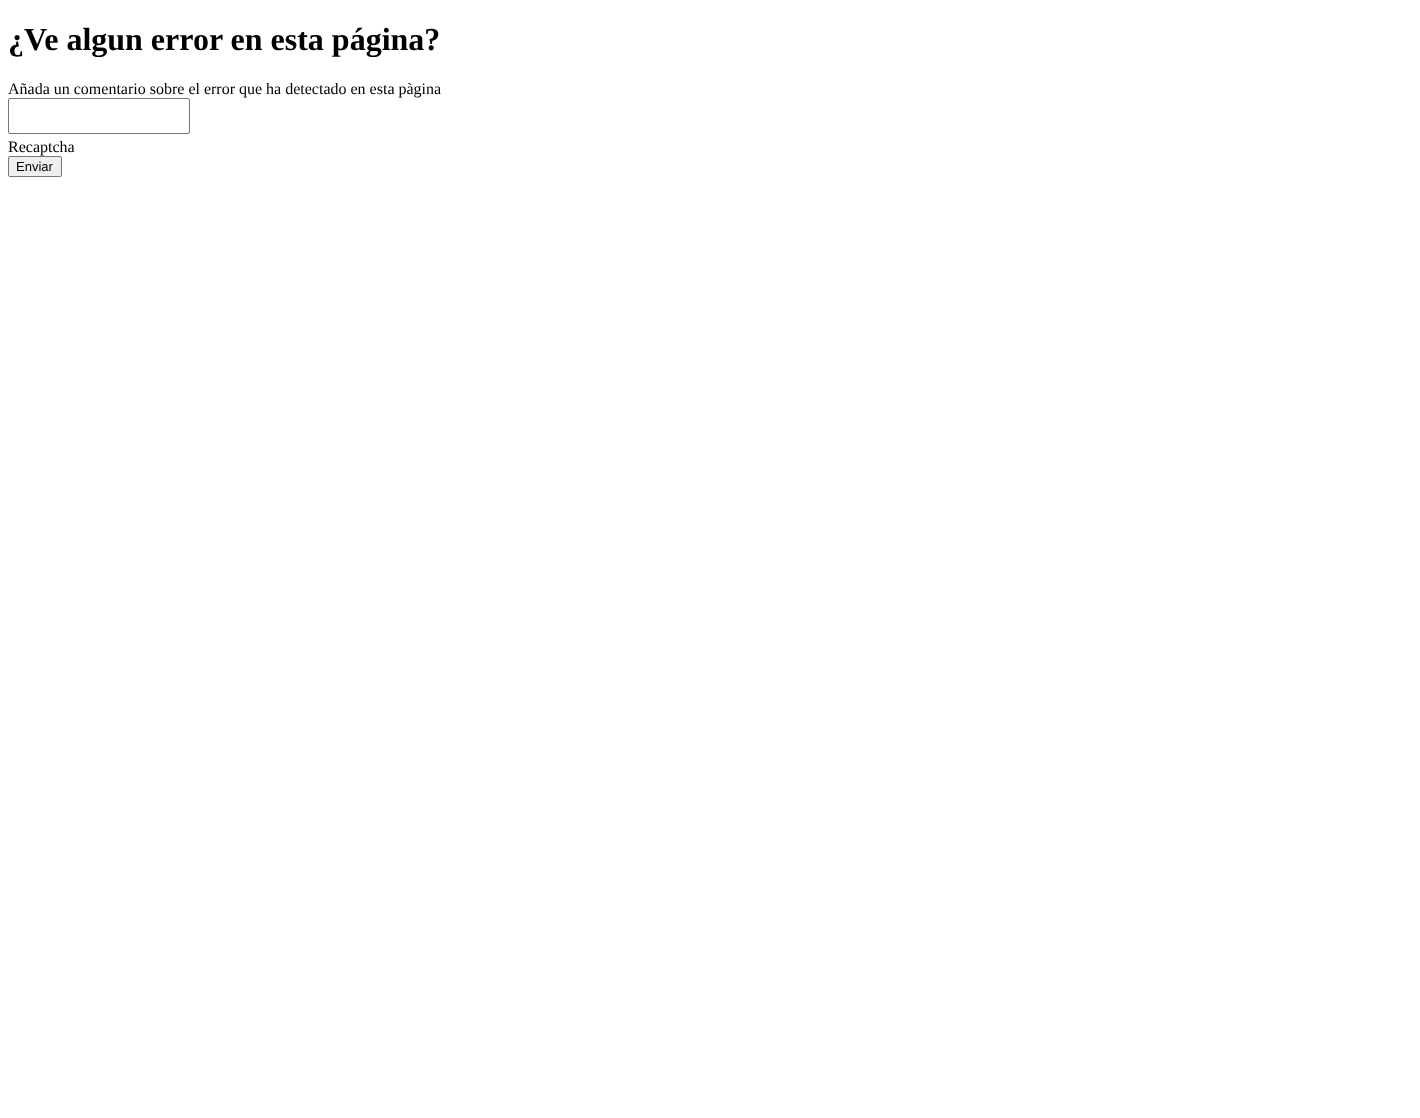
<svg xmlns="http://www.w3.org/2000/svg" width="1420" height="1118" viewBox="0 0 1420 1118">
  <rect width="100%" height="100%" fill="rgb(255,255,255)"/>
  <text x="8" y="50" font-family="Liberation Serif" font-size="32" font-weight="bold" fill="rgb(0,0,0)">¿Ve algun error en esta página?</text>
  <text x="8" y="94" font-family="Liberation Serif" font-size="16" fill="rgb(0,0,0)">Añada un comentario sobre el error que ha detectado en esta pàgina</text>
  <rect x="8.5" y="98.5" width="181" height="35" rx="1.5" fill="none" stroke="rgb(118,118,118)"/>
  <text x="8" y="152" font-family="Liberation Serif" font-size="16" fill="rgb(0,0,0)">Recaptcha</text>
  <rect x="8.5" y="156.5" width="53" height="20" rx="1.5" fill="rgb(239,239,239)" stroke="rgb(118,118,118)"/>
  <text x="16" y="171" font-family="Liberation Sans" font-size="13" fill="rgb(0,0,0)">Enviar</text>
</svg>
